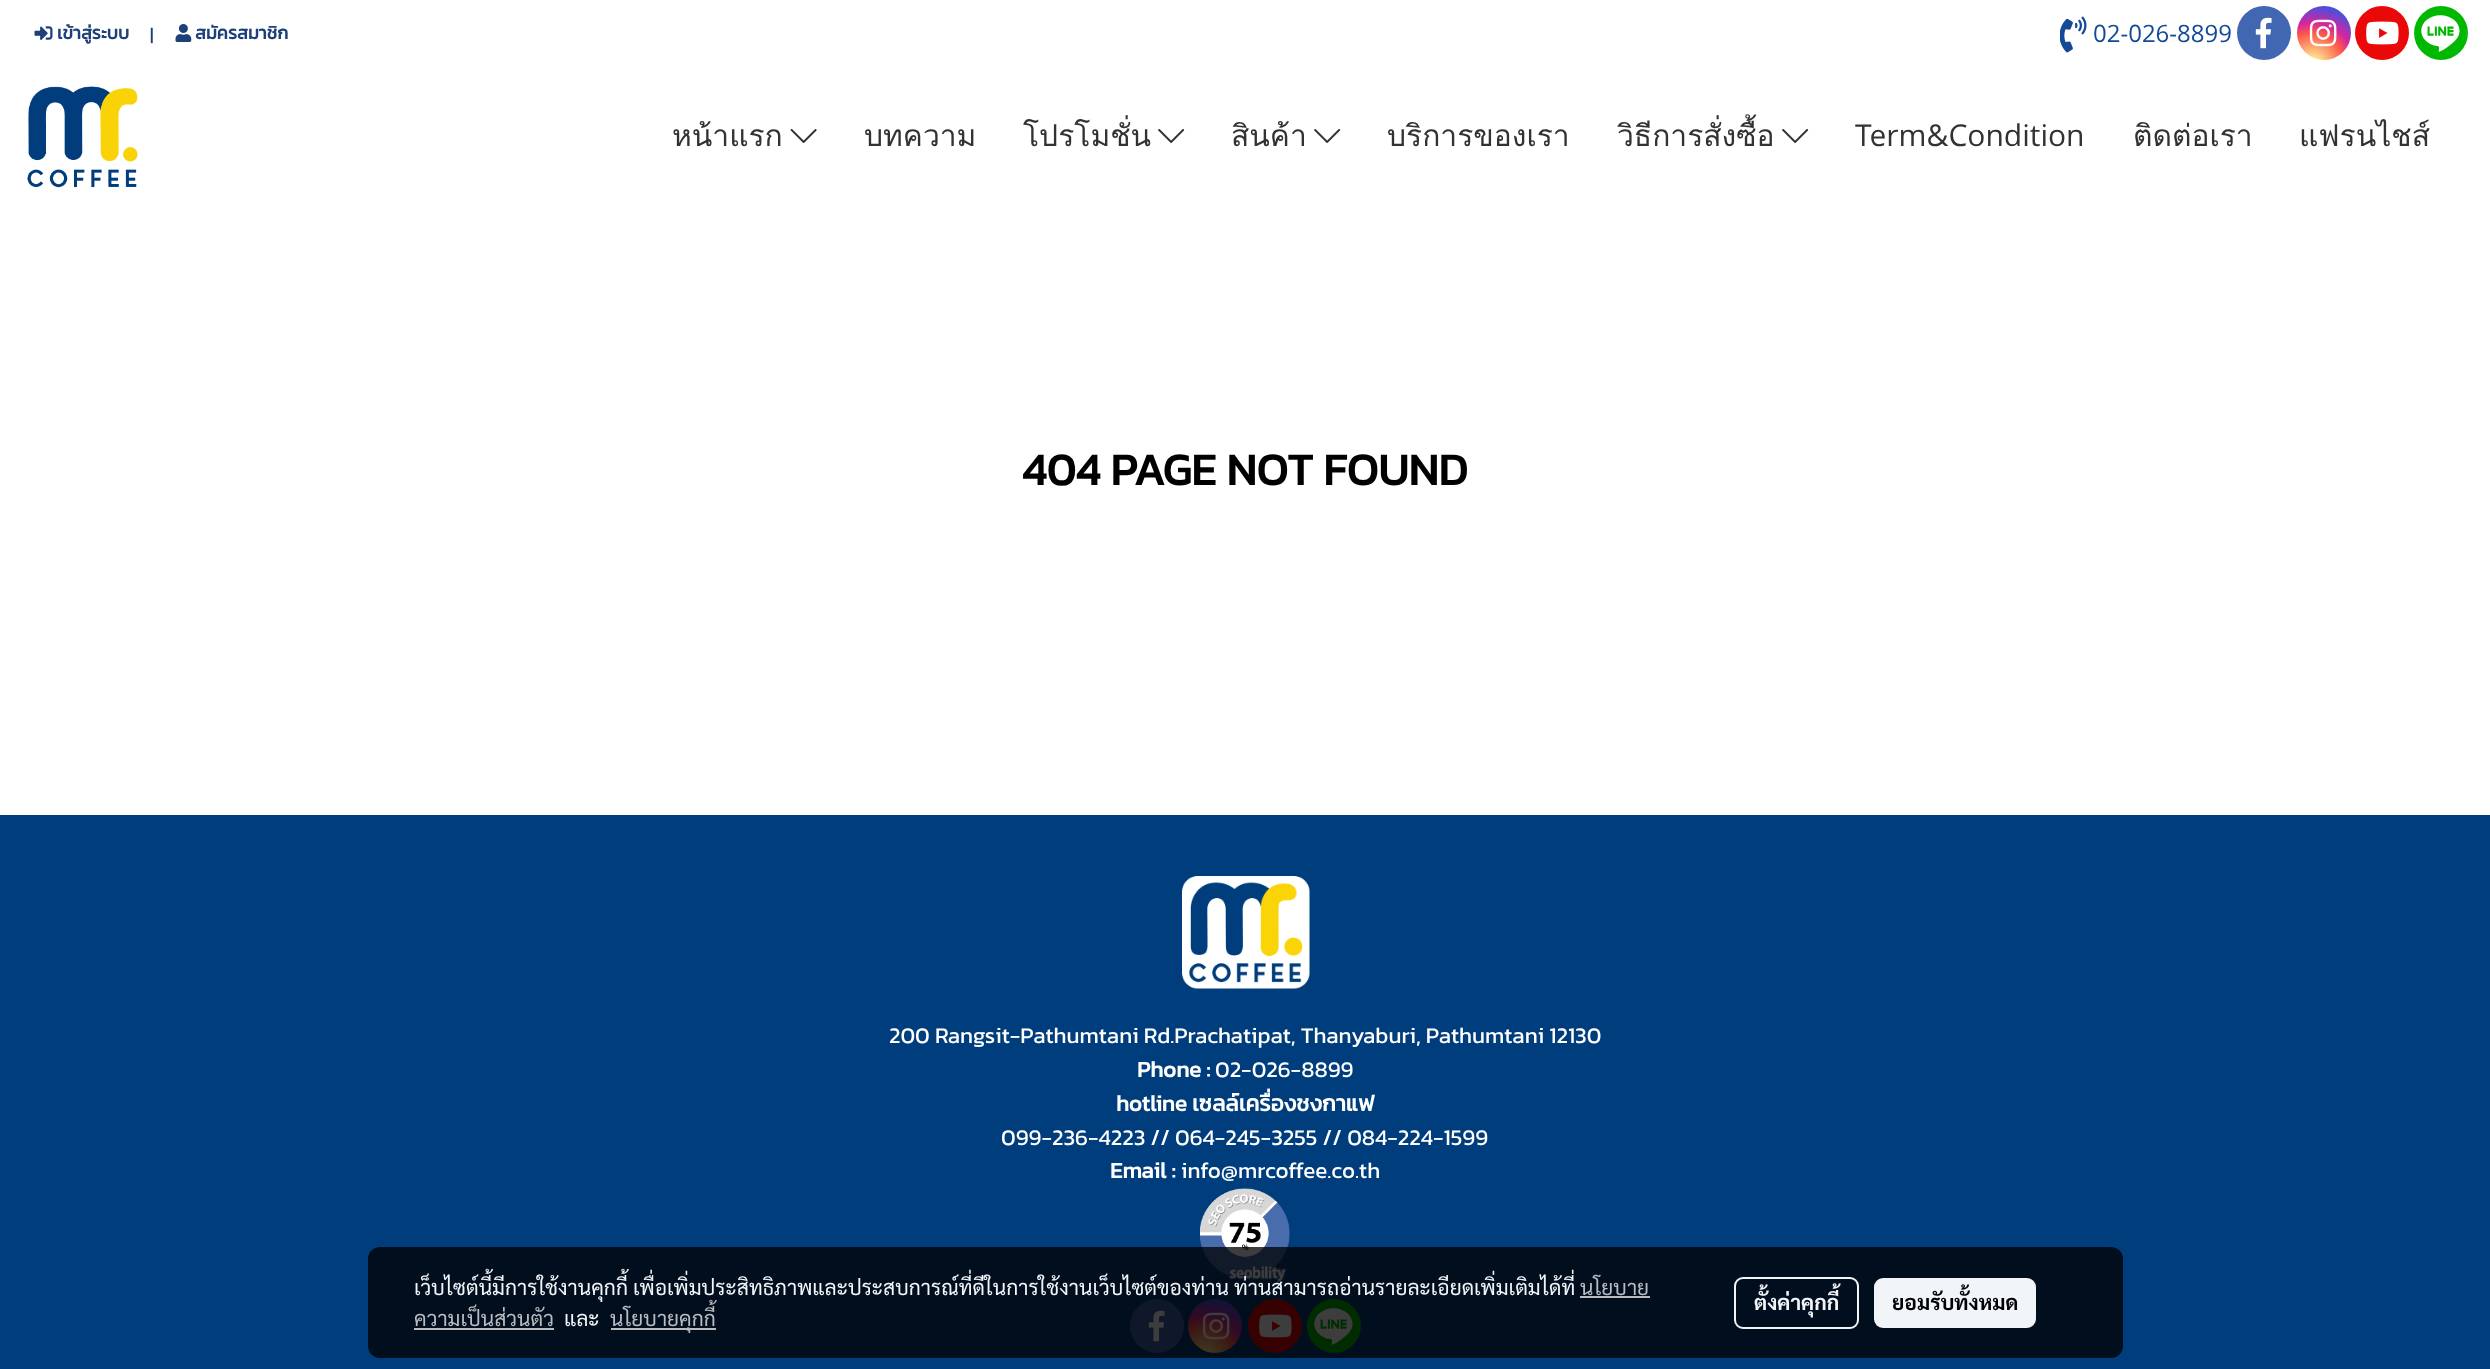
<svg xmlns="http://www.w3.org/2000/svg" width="2490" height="1369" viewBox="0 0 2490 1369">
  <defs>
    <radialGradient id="g1" gradientUnits="userSpaceOnUse" cx="2313" cy="64" r="69"><stop offset="0" stop-color="rgb(253,244,151)"/><stop offset="0.05" stop-color="rgb(253,244,151)"/><stop offset="0.45" stop-color="rgb(253,89,73)"/><stop offset="0.6" stop-color="rgb(214,36,159)"/><stop offset="0.9" stop-color="rgb(40,90,235)"/></radialGradient>
    <radialGradient id="g2" gradientUnits="userSpaceOnUse" cx="1204" cy="1357" r="69"><stop offset="0" stop-color="rgb(253,244,151)"/><stop offset="0.05" stop-color="rgb(253,244,151)"/><stop offset="0.45" stop-color="rgb(253,89,73)"/><stop offset="0.6" stop-color="rgb(214,36,159)"/><stop offset="0.9" stop-color="rgb(40,90,235)"/></radialGradient>
  </defs>
  <rect width="100%" height="100%" fill="rgb(255,255,255)"/>
  <image x="34" y="26" width="19" height="14" href="pic1.png"/>
  <text x="57" y="39" font-family="Kanit" font-size="18" font-weight="bold" fill="rgb(30,64,122)">เข้าสู่ระบบ</text>
  <text x="150" y="41" font-family="Kanit" font-size="18" fill="rgb(30,64,122)">|</text>
  <image x="175" y="24" width="17" height="18" href="pic2.png"/>
  <text x="195" y="39" font-family="Kanit" font-size="18" font-weight="bold" fill="rgb(30,64,122)">สมัครสมาชิก</text>
  <image x="2060" y="16" width="27" height="37" href="pic3.png"/>
  <text x="2093" y="42" font-family="Open Sans" font-size="24" fill="rgb(19,73,149)">02-026-8899</text>
  <circle cx="2264" cy="33" r="27" fill="rgb(66,103,178)"/>
  <image x="2255" y="17" width="17" height="32" href="pic4.png"/>
  <circle cx="2324" cy="33" r="27" fill="url(#g1)"/>
  <image x="2309" y="19" width="28" height="28" href="pic5.png"/>
  <circle cx="2382" cy="33" r="27" fill="rgb(235,8,8)"/>
  <image x="2366" y="21" width="33" height="24" href="pic6.png"/>
  <circle cx="2441" cy="33" r="27" fill="rgb(0,184,0)"/>
  <image x="2414" y="6" width="53" height="54" href="pic7.png"/>
  <image x="27" y="86" width="111" height="102" href="pic8.png"/>
  <text x="672" y="146" font-family="Loma" font-size="30" fill="rgb(50,50,50)">หน้าแรก</text>
  <image x="790" y="129" width="27" height="14" href="pic9.png"/>
  <g font-family="Loma" font-size="30" fill="rgb(50,50,50)">
    <text x="864" y="146">บทความ</text>
    <text x="1023" y="146">โปรโมชั่น</text>
  </g>
  <image x="1158" y="129" width="27" height="14" href="pic10.png"/>
  <text x="1231" y="146" font-family="Loma" font-size="30" fill="rgb(50,50,50)">สินค้า</text>
  <image x="1314" y="129" width="27" height="14" href="pic10.png"/>
  <g font-family="Loma" font-size="30" fill="rgb(50,50,50)">
    <text x="1387" y="146">บริการของเรา</text>
    <text x="1617" y="146">วิธีการสั่งซื้อ</text>
  </g>
  <image x="1782" y="129" width="27" height="14" href="pic10.png"/>
  <text x="1855" y="146" font-family="Open Sans" font-size="30" fill="rgb(50,50,50)">Term&amp;Condition</text>
  <g font-family="Loma" font-size="30" fill="rgb(50,50,50)">
    <text x="2133" y="146">ติดต่อเรา</text>
    <text x="2299" y="146">แฟรนไชส์</text>
  </g>
  <text x="1022" y="485" font-family="Kanit" font-size="45" font-weight="bold" fill="rgb(0,0,0)">404 PAGE NOT FOUND</text>
  <rect x="0" y="815" width="2490" height="554" fill="rgb(0,61,124)"/>
  <image x="1182" y="876" width="128" height="113" href="pic11.png"/>
  <text x="889" y="1043" font-family="Kanit" font-size="22.5" fill="rgb(255,255,255)">200 Rangsit-Pathumtani Rd.Prachatipat, Thanyaburi, Pathumtani 12130</text>
  <text x="1137" y="1077" font-family="Kanit" font-size="22.5" font-weight="bold" fill="rgb(255,255,255)">Phone :</text>
  <text x="1215" y="1077" font-family="Kanit" font-size="22.5" fill="rgb(255,255,255)">02-026-8899</text>
  <text x="1116" y="1111" font-family="Kanit" font-size="22.5" font-weight="bold" fill="rgb(255,255,255)">hotline เซลล์เครื่องชงกาแฟ</text>
  <text x="1001" y="1145" font-family="Kanit" font-size="22.5" fill="rgb(255,255,255)">099-236-4223 // 064-245-3255 // 084-224-1599</text>
  <text x="1110" y="1178" font-family="Kanit" font-size="22.5" font-weight="bold" fill="rgb(255,255,255)">Email :</text>
  <text x="1181" y="1178" font-family="Kanit" font-size="22.5" fill="rgb(255,255,255)">info@mrcoffee.co.th</text>
  <image x="1200" y="1188" width="90" height="95" href="pic12.png"/>
  <circle cx="1157" cy="1326" r="27" fill="rgb(66,103,178)"/>
  <image x="1148" y="1310" width="17" height="32" href="pic4.png"/>
  <circle cx="1215" cy="1326" r="27" fill="url(#g2)"/>
  <image x="1202" y="1312" width="28" height="28" href="pic13.png"/>
  <circle cx="1275" cy="1326" r="27" fill="rgb(235,8,8)"/>
  <image x="1259" y="1314" width="33" height="24" href="pic6.png"/>
  <circle cx="1334" cy="1326" r="27" fill="rgb(0,184,0)"/>
  <image x="1307" y="1299" width="53" height="54" href="pic14.png"/>
  <rect x="368" y="1247" width="1755" height="111" rx="12" fill="rgba(0,0,0,0.76)"/>
  <g font-family="Sarabun" font-size="21" fill="rgb(242,245,248)">
    <text x="414" y="1295">เว็บไซต์นี้มีการใช้งานคุกกี้ เพื่อเพิ่มประสิทธิภาพและประสบการณ์ที่ดีในการใช้งานเว็บไซต์ของท่าน</text>
    <text x="1234" y="1295">ท่านสามารถอ่านรายละเอียดเพิ่มเติมได้ที่</text>
  </g>
  <text x="1580" y="1295" font-family="Sarabun" font-size="21" fill="rgb(184,187,191)">นโยบาย</text>
  <rect x="1580" y="1296" width="70" height="2" fill="rgb(184,187,191)"/>
  <text x="414" y="1326" font-family="Sarabun" font-size="21" fill="rgb(184,187,191)">ความเป็นส่วนตัว</text>
  <rect x="414" y="1328" width="140" height="2" fill="rgb(184,187,191)"/>
  <text x="564" y="1326" font-family="Sarabun" font-size="21" fill="rgb(242,245,248)">และ</text>
  <rect x="611" y="1328" width="105" height="2" fill="rgb(184,187,191)"/>
  <text x="610" y="1326" font-family="Sarabun" font-size="21" fill="rgb(184,187,191)">นโยบายคุกกี้</text>
  <rect x="1735" y="1278" width="123" height="50" rx="8" fill="none" stroke="rgb(242,245,248)" stroke-width="2"/>
  <text x="1754" y="1310" font-family="Sarabun" font-size="21" font-weight="bold" fill="rgb(242,245,248)">ตั้งค่าคุกกี้</text>
  <rect x="1874" y="1278" width="162" height="50" rx="9" fill="rgb(242,245,248)"/>
  <text x="1892" y="1310" font-family="Sarabun" font-size="21" font-weight="bold" fill="rgb(0,3,6)">ยอมรับทั้งหมด</text>
</svg>
